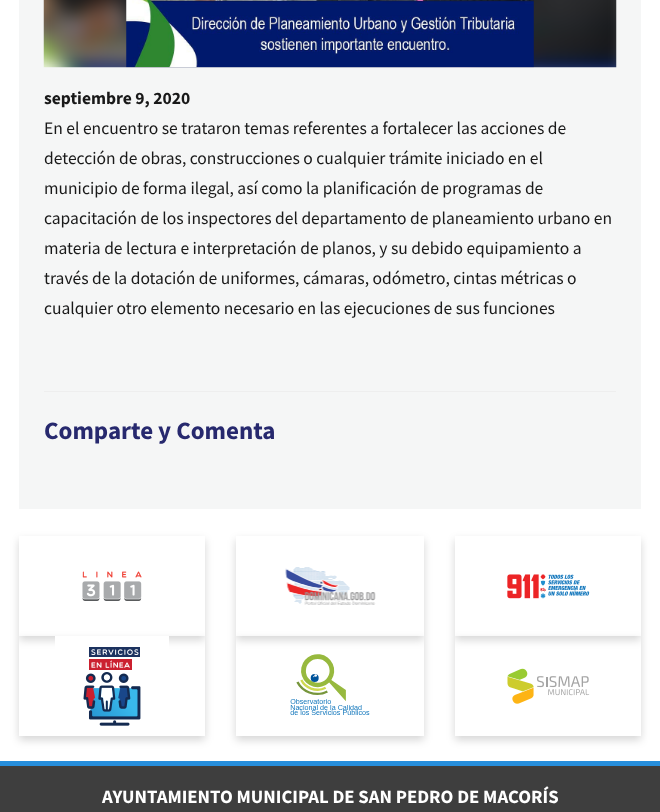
<svg xmlns="http://www.w3.org/2000/svg" width="660" height="812" viewBox="0 0 660 812">
  <defs>
    <clipPath id="clip1"><path d="M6 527H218V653H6ZM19 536H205V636H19Z" clip-rule="evenodd"/></clipPath>
    <clipPath id="clip2"><path d="M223 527H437V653H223ZM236 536H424V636H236Z" clip-rule="evenodd"/></clipPath>
    <clipPath id="clip3"><path d="M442 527H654V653H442ZM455 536H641V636H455Z" clip-rule="evenodd"/></clipPath>
    <clipPath id="clip4"><path d="M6 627H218V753H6ZM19 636H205V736H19Z" clip-rule="evenodd"/></clipPath>
    <clipPath id="clip5"><path d="M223 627H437V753H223ZM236 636H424V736H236Z" clip-rule="evenodd"/></clipPath>
    <clipPath id="clip6"><path d="M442 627H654V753H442ZM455 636H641V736H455Z" clip-rule="evenodd"/></clipPath>
  </defs>
  <rect width="100%" height="100%" fill="rgb(255,255,255)"/>
  <rect x="19" y="0" width="622" height="509" fill="rgb(245,246,246)"/>
  <image x="43" y="0" width="574" height="68" href="pic1.png"/>
  <image x="126" y="0" width="408" height="68" href="pic2.png"/>
  <text x="44" y="104" font-family="Source Sans Pro" font-size="17.5" font-weight="bold" fill="rgb(25,25,25)">septiembre 9, 2020</text>
  <g font-family="Source Sans Pro" font-size="17.5" fill="rgb(25,25,25)">
    <text>
      <tspan x="44" y="134">En el encuentro se trataron temas referentes a fortalecer las acciones de</tspan>
      <tspan x="44" y="164">detección de obras, construcciones o cualquier trámite iniciado en el</tspan>
      <tspan x="44" y="194">municipio de forma ilegal, así como la planificación de programas de</tspan>
      <tspan x="44" y="224">capacitación de los inspectores del departamento de planeamiento urbano en</tspan>
      <tspan x="44" y="254">materia de lectura e interpretación de planos, y su debido equipamiento a</tspan>
      <tspan x="44" y="284">través de la dotación de uniformes, cámaras, odómetro, cintas métricas o</tspan>
      <tspan x="44" y="314">cualquier otro elemento necesario en las ejecuciones de sus funciones</tspan>
    </text>
  </g>
  <rect x="44" y="391" width="572" height="1" fill="rgb(238,238,238)"/>
  <text x="44" y="439" font-family="Source Sans Pro" font-size="25" font-weight="bold" fill="rgb(39,41,110)">Comparte y Comenta</text>
  <g clip-path="url(#clip1)">
    <rect x="19" y="540" width="186" height="100" fill="rgba(0,0,0,0.16)" filter="blur(4px)"/>
  </g>
  <image x="82" y="571" width="60" height="30" href="pic3.png"/>
  <g clip-path="url(#clip2)">
    <rect x="236" y="540" width="188" height="100" fill="rgba(0,0,0,0.16)" filter="blur(4px)"/>
  </g>
  <image x="285" y="567" width="91" height="38" href="pic4.png"/>
  <g clip-path="url(#clip3)">
    <rect x="455" y="540" width="186" height="100" fill="rgba(0,0,0,0.16)" filter="blur(4px)"/>
  </g>
  <image x="507" y="574" width="83" height="25" href="pic5.png"/>
  <g clip-path="url(#clip4)">
    <rect x="19" y="640" width="186" height="100" fill="rgba(0,0,0,0.16)" filter="blur(4px)"/>
  </g>
  <image x="55" y="636" width="114" height="90" href="pic6.png"/>
  <g clip-path="url(#clip5)">
    <rect x="236" y="640" width="188" height="100" fill="rgba(0,0,0,0.16)" filter="blur(4px)"/>
  </g>
  <image x="290" y="654" width="80" height="61" href="pic7.png"/>
  <g clip-path="url(#clip6)">
    <rect x="455" y="640" width="186" height="100" fill="rgba(0,0,0,0.16)" filter="blur(4px)"/>
  </g>
  <image x="507" y="668" width="83" height="36" href="pic8.png"/>
  <rect x="0" y="766" width="660" height="46" fill="rgb(62,62,62)"/>
  <rect x="0" y="761" width="660" height="5" fill="rgb(38,142,220)"/>
  <text x="102" y="803" font-family="Source Sans Pro" font-size="18.75" font-weight="bold" fill="rgb(255,255,255)">AYUNTAMIENTO MUNICIPAL DE SAN PEDRO DE MACORÍS</text>
</svg>
